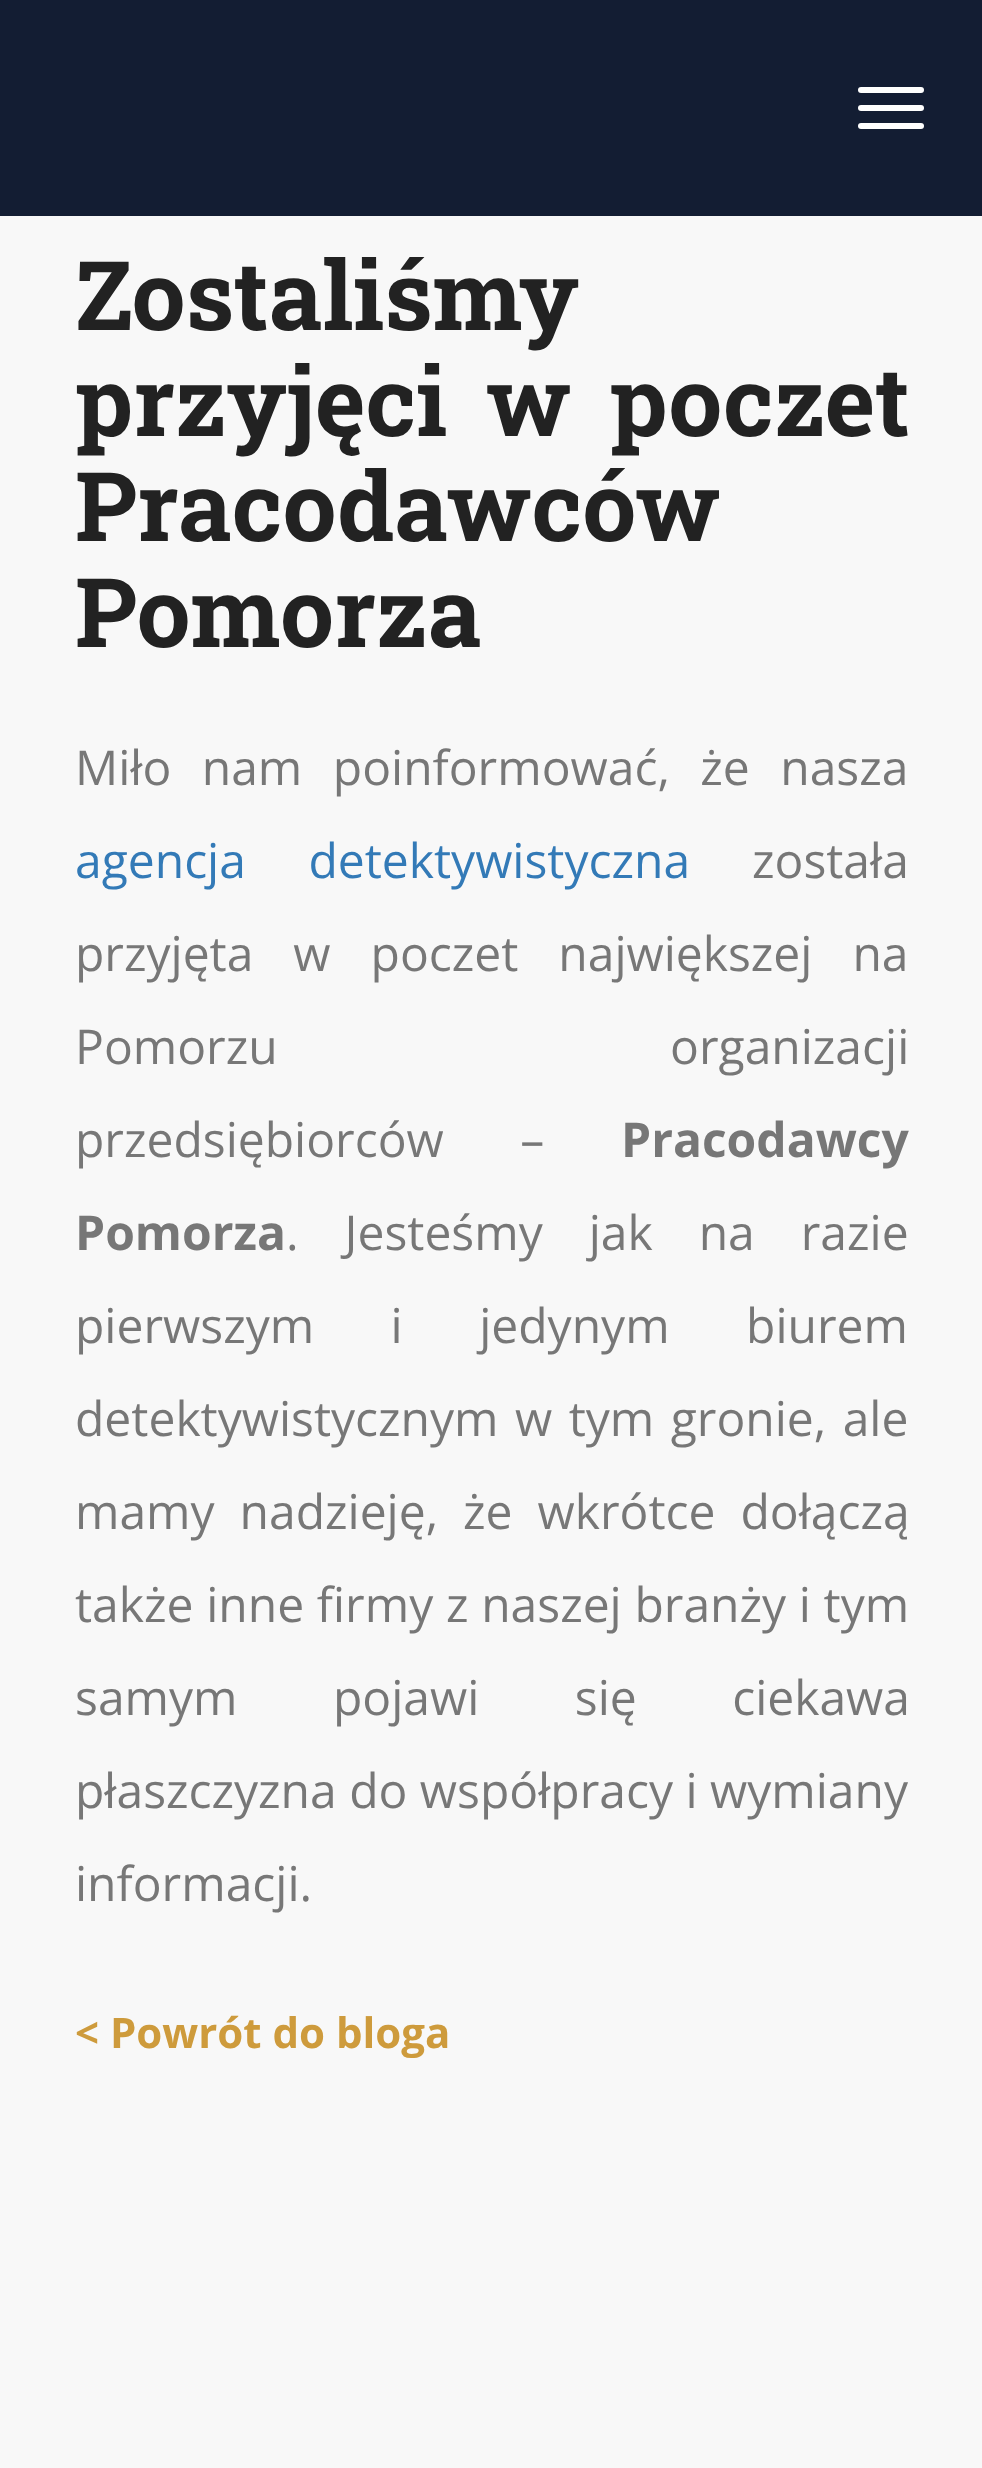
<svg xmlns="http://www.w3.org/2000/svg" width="982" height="2468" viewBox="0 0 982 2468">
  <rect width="100%" height="100%" fill="rgb(248,248,248)"/>
  <rect x="0" y="0" width="982" height="216" fill="rgb(19,29,51)"/>
  <rect x="858" y="87" width="66" height="6" rx="3" fill="rgb(255,255,255)"/>
  <rect x="858" y="105" width="66" height="6" rx="3" fill="rgb(255,255,255)"/>
  <rect x="858" y="123" width="66" height="6" rx="3" fill="rgb(255,255,255)"/>
  <g font-family="Roboto Slab" font-size="96" font-weight="bold" fill="rgb(34,34,34)">
    <text>
      <tspan x="75" y="330">Zostaliśmy</tspan>
      <tspan x="75" y="436" word-spacing="15">przyjęci w poczet</tspan>
      <tspan x="75" y="541">Pracodawców</tspan>
      <tspan x="75" y="647">Pomorza</tspan>
    </text>
  </g>
  <text x="75" y="785" word-spacing="18" font-family="Open Sans" font-size="48" fill="rgb(119,119,119)">Miło nam poinformować, że nasza</text>
  <text x="75" y="878" word-spacing="50" font-family="Open Sans" font-size="48" fill="rgb(51,122,183)">agencja detektywistyczna</text>
  <g font-family="Open Sans" font-size="48" fill="rgb(119,119,119)">
    <text x="752" y="878">została</text>
    <text>
      <tspan x="75" y="971" word-spacing="27.5">przyjęta w poczet największej na</tspan>
      <tspan x="75" y="1064" word-spacing="380">Pomorzu organizacji</tspan>
      <tspan x="75" y="1157" word-spacing="64">przedsiębiorców –</tspan>
    </text>
  </g>
  <g font-family="Open Sans" font-size="48" font-weight="bold" fill="rgb(119,119,119)">
    <text x="621" y="1157">Pracodawcy</text>
    <text x="75" y="1250">Pomorza</text>
  </g>
  <g font-family="Open Sans" font-size="48" fill="rgb(119,119,119)">
    <text x="286" y="1250" word-spacing="33.5">. Jesteśmy jak na razie</text>
    <text>
      <tspan x="75" y="1343" word-spacing="64">pierwszym i jedynym biurem</tspan>
      <tspan x="75" y="1436" word-spacing="4">detektywistycznym w tym gronie, ale</tspan>
      <tspan x="75" y="1529" word-spacing="12.5">mamy nadzieję, że wkrótce dołączą</tspan>
      <tspan x="75" y="1622" word-spacing="0.25">także inne firmy z naszej branży i tym</tspan>
      <tspan x="75" y="1715" word-spacing="83">samym pojawi się ciekawa</tspan>
      <tspan x="75" y="1808">płaszczyzna do współpracy i wymiany</tspan>
      <tspan x="75" y="1901">informacji.</tspan>
    </text>
  </g>
  <text x="75" y="2048" font-family="Open Sans" font-size="42" font-weight="bold" fill="rgb(206,155,60)">&lt; Powrót do bloga</text>
</svg>
